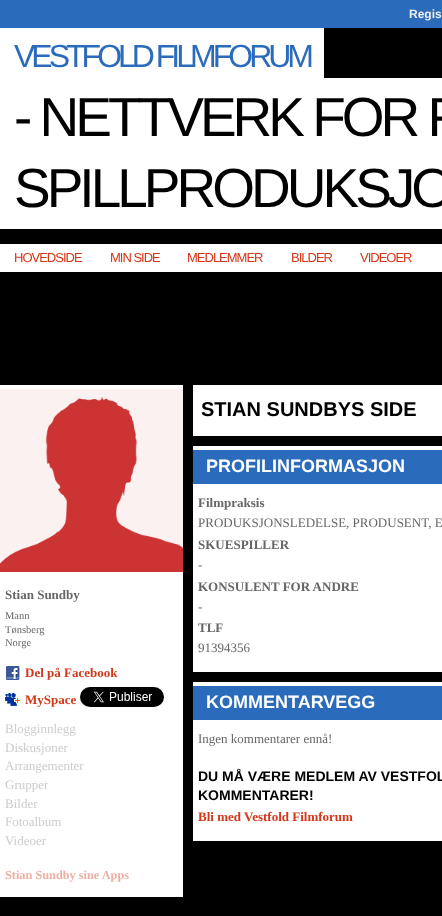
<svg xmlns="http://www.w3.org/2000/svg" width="442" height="916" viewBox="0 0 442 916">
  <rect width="100%" height="100%" fill="rgb(0,0,0)"/>
  <rect x="0" y="0" width="442" height="28" fill="rgb(43,107,187)"/>
  <text x="409" y="18" font-family="Liberation Sans" font-size="12" font-weight="bold" fill="rgb(238,238,238)">Regis</text>
  <rect x="0" y="28" width="324" height="50" fill="rgb(255,255,255)"/>
  <text x="14" y="67" font-family="Liberation Sans" font-size="32" letter-spacing="-4" fill="rgb(43,107,187)">VESTFOLD FILMFORUM</text>
  <rect x="0" y="78" width="442" height="151" fill="rgb(255,255,255)"/>
  <g font-family="Liberation Sans" font-size="55" letter-spacing="-4" fill="rgb(0,0,0)">
    <text>
      <tspan x="14" y="136">- NETTVERK FOR F</tspan>
      <tspan x="14" y="207">SPILLPRODUKSJO</tspan>
    </text>
  </g>
  <rect x="0" y="244" width="442" height="28" fill="rgb(255,255,255)"/>
  <g font-family="Liberation Sans" font-size="13" letter-spacing="-1" fill="rgb(211,55,26)">
    <text x="14" y="262">HOVEDSIDE</text>
    <text x="110" y="262">MIN SIDE</text>
    <text x="187" y="262">MEDLEMMER</text>
    <text x="291" y="262">BILDER</text>
    <text x="360" y="262">VIDEOER</text>
  </g>
  <rect x="0" y="385" width="183" height="512" fill="rgb(255,255,255)"/>
  <image x="0" y="389" width="183" height="183" href="pic1.png"/>
  <text x="5" y="599" font-family="Liberation Serif" font-size="13" font-weight="bold" fill="rgb(102,102,102)">Stian Sundby</text>
  <g font-family="Liberation Serif" font-size="10.5" fill="rgb(102,102,102)">
    <text>
      <tspan x="5" y="619">Mann</tspan>
      <tspan x="5" y="633">Tønsberg</tspan>
      <tspan x="5" y="646">Norge</tspan>
    </text>
  </g>
  <image x="6" y="666" width="14" height="14" href="pic2.png"/>
  <text x="25" y="677" font-family="Liberation Serif" font-size="13" font-weight="bold" fill="rgb(211,55,26)">Del på Facebook</text>
  <image x="5" y="693" width="15" height="13" href="pic3.png"/>
  <text x="25" y="704" font-family="Liberation Serif" font-size="13" font-weight="bold" fill="rgb(211,55,26)">MySpace</text>
  <image x="80" y="687" width="84" height="20" href="pic4.png"/>
  <g font-family="Liberation Serif" font-size="13" fill="rgb(204,204,204)">
    <text>
      <tspan x="5" y="733">Blogginnlegg</tspan>
      <tspan x="5" y="752">Diskusjoner</tspan>
      <tspan x="5" y="770">Arrangementer</tspan>
      <tspan x="5" y="789">Grupper</tspan>
      <tspan x="5" y="808">Bilder</tspan>
      <tspan x="5" y="826">Fotoalbum</tspan>
      <tspan x="5" y="845">Videoer</tspan>
    </text>
  </g>
  <text x="5" y="879" font-family="Liberation Serif" font-size="12.3" font-weight="bold" fill="rgb(237,175,163)">Stian Sundby sine Apps</text>
  <rect x="193" y="385" width="249" height="51" fill="rgb(255,255,255)"/>
  <text x="201" y="416" font-family="Liberation Sans" font-size="20" font-weight="bold" fill="rgb(0,0,0)">STIAN SUNDBYS SIDE</text>
  <rect x="193" y="446" width="249" height="226" fill="rgb(255,255,255)"/>
  <rect x="193" y="450" width="249" height="34" fill="rgb(43,107,187)"/>
  <text x="206" y="472" font-family="Liberation Sans" font-size="18" font-weight="bold" fill="rgb(255,255,255)">PROFILINFORMASJON</text>
  <text x="198" y="507" font-family="Liberation Serif" font-size="13" font-weight="bold" fill="rgb(102,102,102)">Filmpraksis</text>
  <text x="198" y="527" font-family="Liberation Serif" font-size="13" fill="rgb(102,102,102)">PRODUKSJONSLEDELSE, PRODUSENT, E</text>
  <text x="198" y="549" font-family="Liberation Serif" font-size="13" font-weight="bold" fill="rgb(102,102,102)">SKUESPILLER</text>
  <text x="198" y="569" font-family="Liberation Serif" font-size="13" fill="rgb(102,102,102)">-</text>
  <text x="198" y="591" font-family="Liberation Serif" font-size="13" font-weight="bold" fill="rgb(102,102,102)">KONSULENT FOR ANDRE</text>
  <text x="198" y="611" font-family="Liberation Serif" font-size="13" fill="rgb(102,102,102)">-</text>
  <text x="198" y="632" font-family="Liberation Serif" font-size="13" font-weight="bold" fill="rgb(102,102,102)">TLF</text>
  <text x="198" y="652" font-family="Liberation Serif" font-size="13" fill="rgb(102,102,102)">91394356</text>
  <rect x="193" y="682" width="249" height="159" fill="rgb(255,255,255)"/>
  <rect x="193" y="686" width="249" height="34" fill="rgb(43,107,187)"/>
  <text x="206" y="708" font-family="Liberation Sans" font-size="18" font-weight="bold" fill="rgb(255,255,255)">KOMMENTARVEGG</text>
  <text x="198" y="743" font-family="Liberation Serif" font-size="13" fill="rgb(102,102,102)">Ingen kommentarer ennå!</text>
  <g font-family="Liberation Sans" font-size="14" font-weight="bold" fill="rgb(0,0,0)">
    <text>
      <tspan x="198" y="781">DU MÅ VÆRE MEDLEM AV VESTFOL</tspan>
      <tspan x="198" y="800">KOMMENTARER!</tspan>
    </text>
  </g>
  <text x="198" y="821" font-family="Liberation Serif" font-size="13" font-weight="bold" fill="rgb(211,55,26)">Bli med Vestfold Filmforum</text>
</svg>
